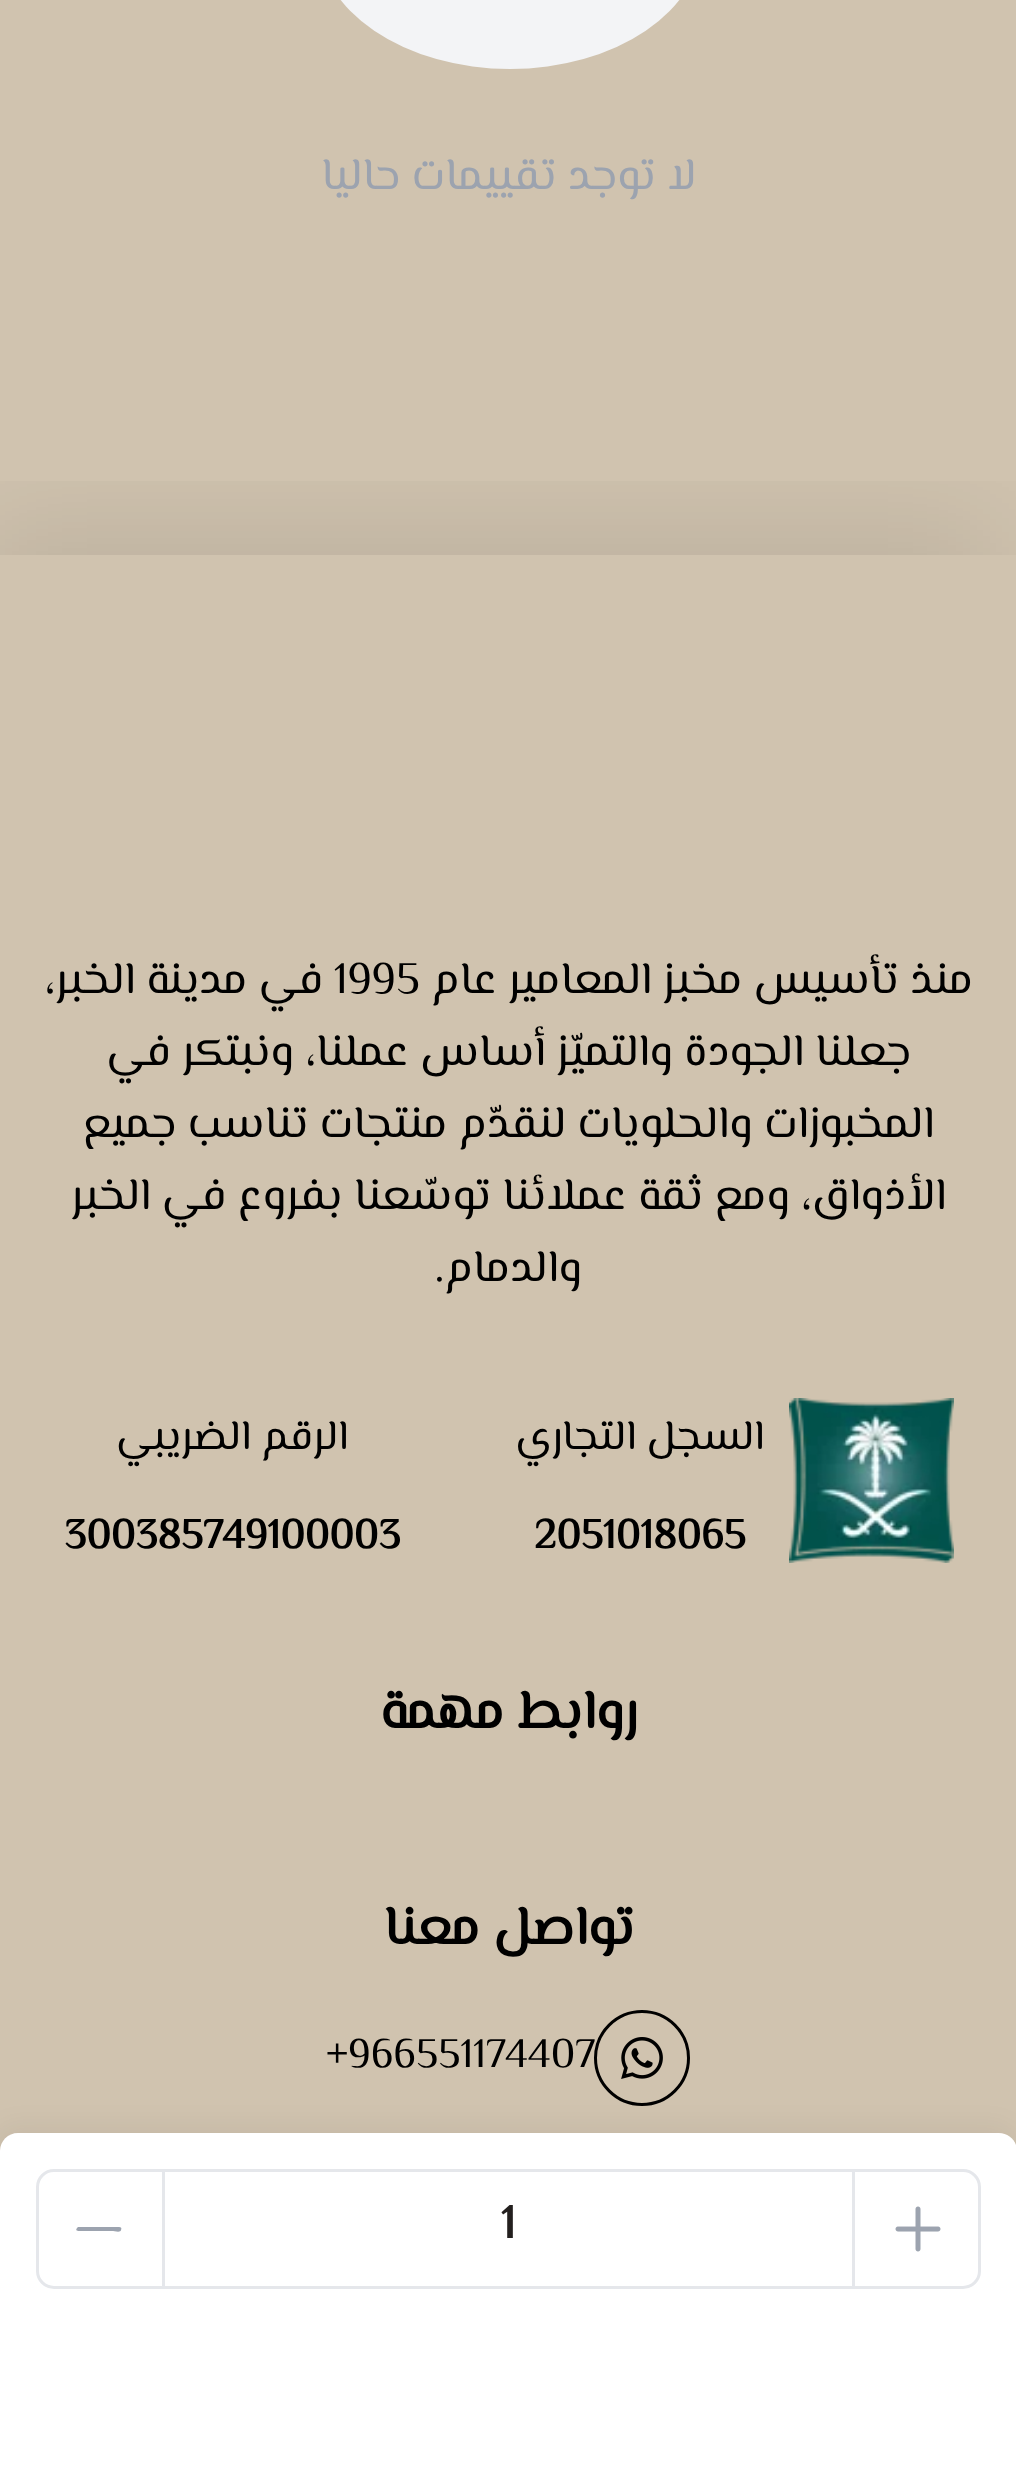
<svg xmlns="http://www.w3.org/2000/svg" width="1016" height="2473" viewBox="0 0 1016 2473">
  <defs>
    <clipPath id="clip1"><rect x="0" y="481" width="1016" height="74"/></clipPath>
  </defs>
  <rect width="100%" height="100%" fill="rgb(208,195,175)"/>
  <rect x="318" y="-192" width="384" height="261" rx="192" fill="rgb(243,244,246)"/>
  <text x="696" y="189" font-family="El Messiri" font-size="45" direction="rtl" fill="rgb(156,163,175)">لا توجد تقييمات حاليا</text>
  <g clip-path="url(#clip1)">
    <rect x="-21" y="525" width="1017" height="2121" fill="rgba(0,0,0,0.09)" filter="blur(57.5px)"/>
  </g>
  <circle cx="642" cy="2058" r="46.5" fill="none" stroke="rgb(0,0,0)" stroke-width="3"/>
  <rect x="-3" y="2127" width="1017" height="342" rx="18" fill="rgba(0,0,0,0.05)" filter="blur(13.5px)"/>
  <path d="M18 2133H999C1009 2133 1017 2141 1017 2151V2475H0V2151C0 2141 8 2133 18 2133Z" fill="rgb(255,255,255)"/>
  <rect x="37.5" y="2170.5" width="942" height="117" rx="16.5" fill="none" stroke="rgb(229,231,235)" stroke-width="3"/>
  <image x="895" y="2206" width="46" height="46" href="pic1.png"/>
  <rect x="852" y="2172" width="3" height="114" fill="rgb(229,231,235)"/>
  <rect x="162" y="2172" width="3" height="114" fill="rgb(229,231,235)"/>
  <text x="501" y="2238" font-family="El Messiri" font-size="48" font-weight="bold" fill="rgb(35,31,30)">1</text>
  <path d="M119 2227H78L77 2228C74 2232 81 2231 86 2231H112C114 2231 121 2233 121 2230C122 2228 121 2227 119 2227Z" fill="rgb(156,163,175)"/>
  <text x="973" y="993" font-family="El Messiri" font-size="45" direction="rtl" fill="rgb(0,0,0)">منذ تأسيس مخبز المعامير عام</text>
  <text x="334" y="993" font-family="El Messiri" font-size="45" fill="rgb(0,0,0)">1995</text>
  <g font-family="El Messiri" font-size="45" direction="rtl" fill="rgb(0,0,0)">
    <text x="323" y="993">في مدينة الخبر،</text>
    <text x="911" y="1065">جعلنا الجودة والتميّز أساس عملنا، ونبتكر في</text>
    <text x="934" y="1137">المخبوزات والحلويات لنقدّم منتجات تناسب جميع</text>
    <text x="946" y="1209">الأذواق، ومع ثقة عملائنا توسّعنا بفروع في الخبر</text>
    <text x="582" y="1281">والدمام.</text>
  </g>
  <image x="789" y="1398" width="165" height="165" href="pic2.png"/>
  <text x="764" y="1449" font-family="El Messiri" font-size="42" direction="rtl" fill="rgb(0,0,0)">السجل التجاري</text>
  <text x="534" y="1548" font-family="El Messiri" font-size="42" font-weight="bold" fill="rgb(0,0,0)">2051018065</text>
  <text x="348" y="1449" font-family="El Messiri" font-size="42" direction="rtl" fill="rgb(0,0,0)">الرقم الضريبي</text>
  <text x="64" y="1548" font-family="El Messiri" font-size="42" font-weight="bold" fill="rgb(0,0,0)">300385749100003</text>
  <g font-family="El Messiri" font-size="54" font-weight="bold" direction="rtl" fill="rgb(0,0,0)">
    <text x="637" y="1728">روابط مهمة</text>
    <text x="634" y="1944">تواصل معنا</text>
  </g>
  <image x="621" y="2037" width="42" height="42" href="pic3.png"/>
  <text x="326" y="2067" font-family="El Messiri" font-size="42" fill="rgb(0,0,0)">+966551174407</text>
</svg>
